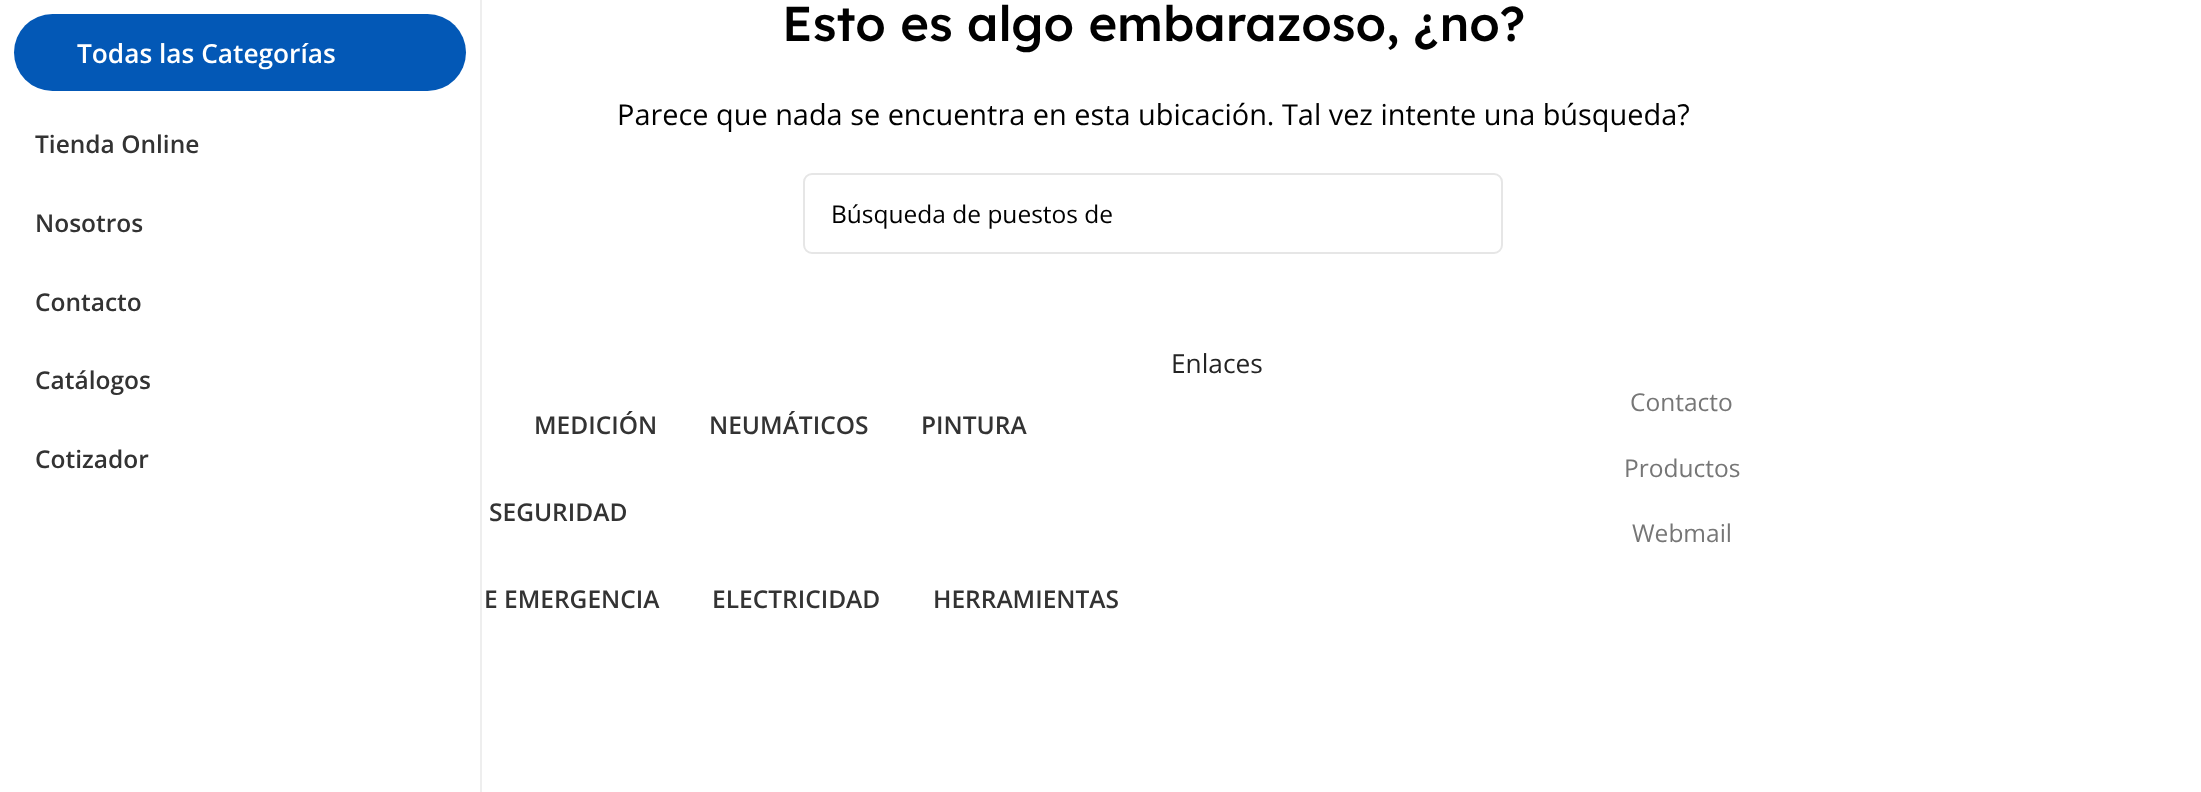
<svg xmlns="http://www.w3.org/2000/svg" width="2201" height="792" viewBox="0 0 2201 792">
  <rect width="100%" height="100%" fill="rgb(255,255,255)"/>
  <rect x="480" y="0" width="2" height="792" fill="rgba(118,118,118,0.12)"/>
  <rect x="14" y="14" width="452" height="77" rx="38.5" fill="rgb(3,88,182)"/>
  <text x="77" y="63" font-family="Open Sans" font-size="26.25" font-weight="600" fill="rgb(255,255,255)">Todas las Categorías</text>
  <g font-family="Open Sans" font-size="24.5" font-weight="600" fill="rgb(51,51,51)">
    <text x="35" y="153">Tienda Online</text>
    <text x="35" y="232">Nosotros</text>
    <text x="35" y="311">Contacto</text>
    <text x="35" y="389">Catálogos</text>
    <text x="35" y="468">Cotizador</text>
  </g>
  <text x="782" y="41" font-family="Lexend Deca" font-size="49" font-weight="500" fill="rgb(0,0,0)">Esto es algo embarazoso, ¿no?</text>
  <text x="617" y="125" font-family="Open Sans" font-size="28.9" fill="rgb(0,0,0)">Parece que nada se encuentra en esta ubicación. Tal vez intente una búsqueda?</text>
  <rect x="804" y="174" width="698" height="79" rx="8" fill="none" stroke="rgb(230,230,230)" stroke-width="2"/>
  <text x="831" y="223" font-family="Open Sans" font-size="24.5" fill="rgb(0,0,0)">Búsqueda de puestos de</text>
  <g font-family="Open Sans" font-size="24.5" font-weight="600" fill="rgb(51,51,51)">
    <text x="534" y="434">MEDICIÓN</text>
    <text x="709" y="434">NEUMÁTICOS</text>
    <text x="921" y="434">PINTURA</text>
    <text x="489" y="521">SEGURIDAD</text>
    <text x="484" y="608">E EMERGENCIA</text>
    <text x="712" y="608">ELECTRICIDAD</text>
    <text x="933" y="608">HERRAMIENTAS</text>
  </g>
  <text x="1171" y="373" font-family="Open Sans" font-size="26.25" fill="rgb(36,36,36)">Enlaces</text>
  <g font-family="Open Sans" font-size="24.5" fill="rgb(118,118,118)">
    <text x="1630" y="411">Contacto</text>
    <text x="1624" y="477">Productos</text>
    <text x="1632" y="542">Webmail</text>
  </g>
</svg>
